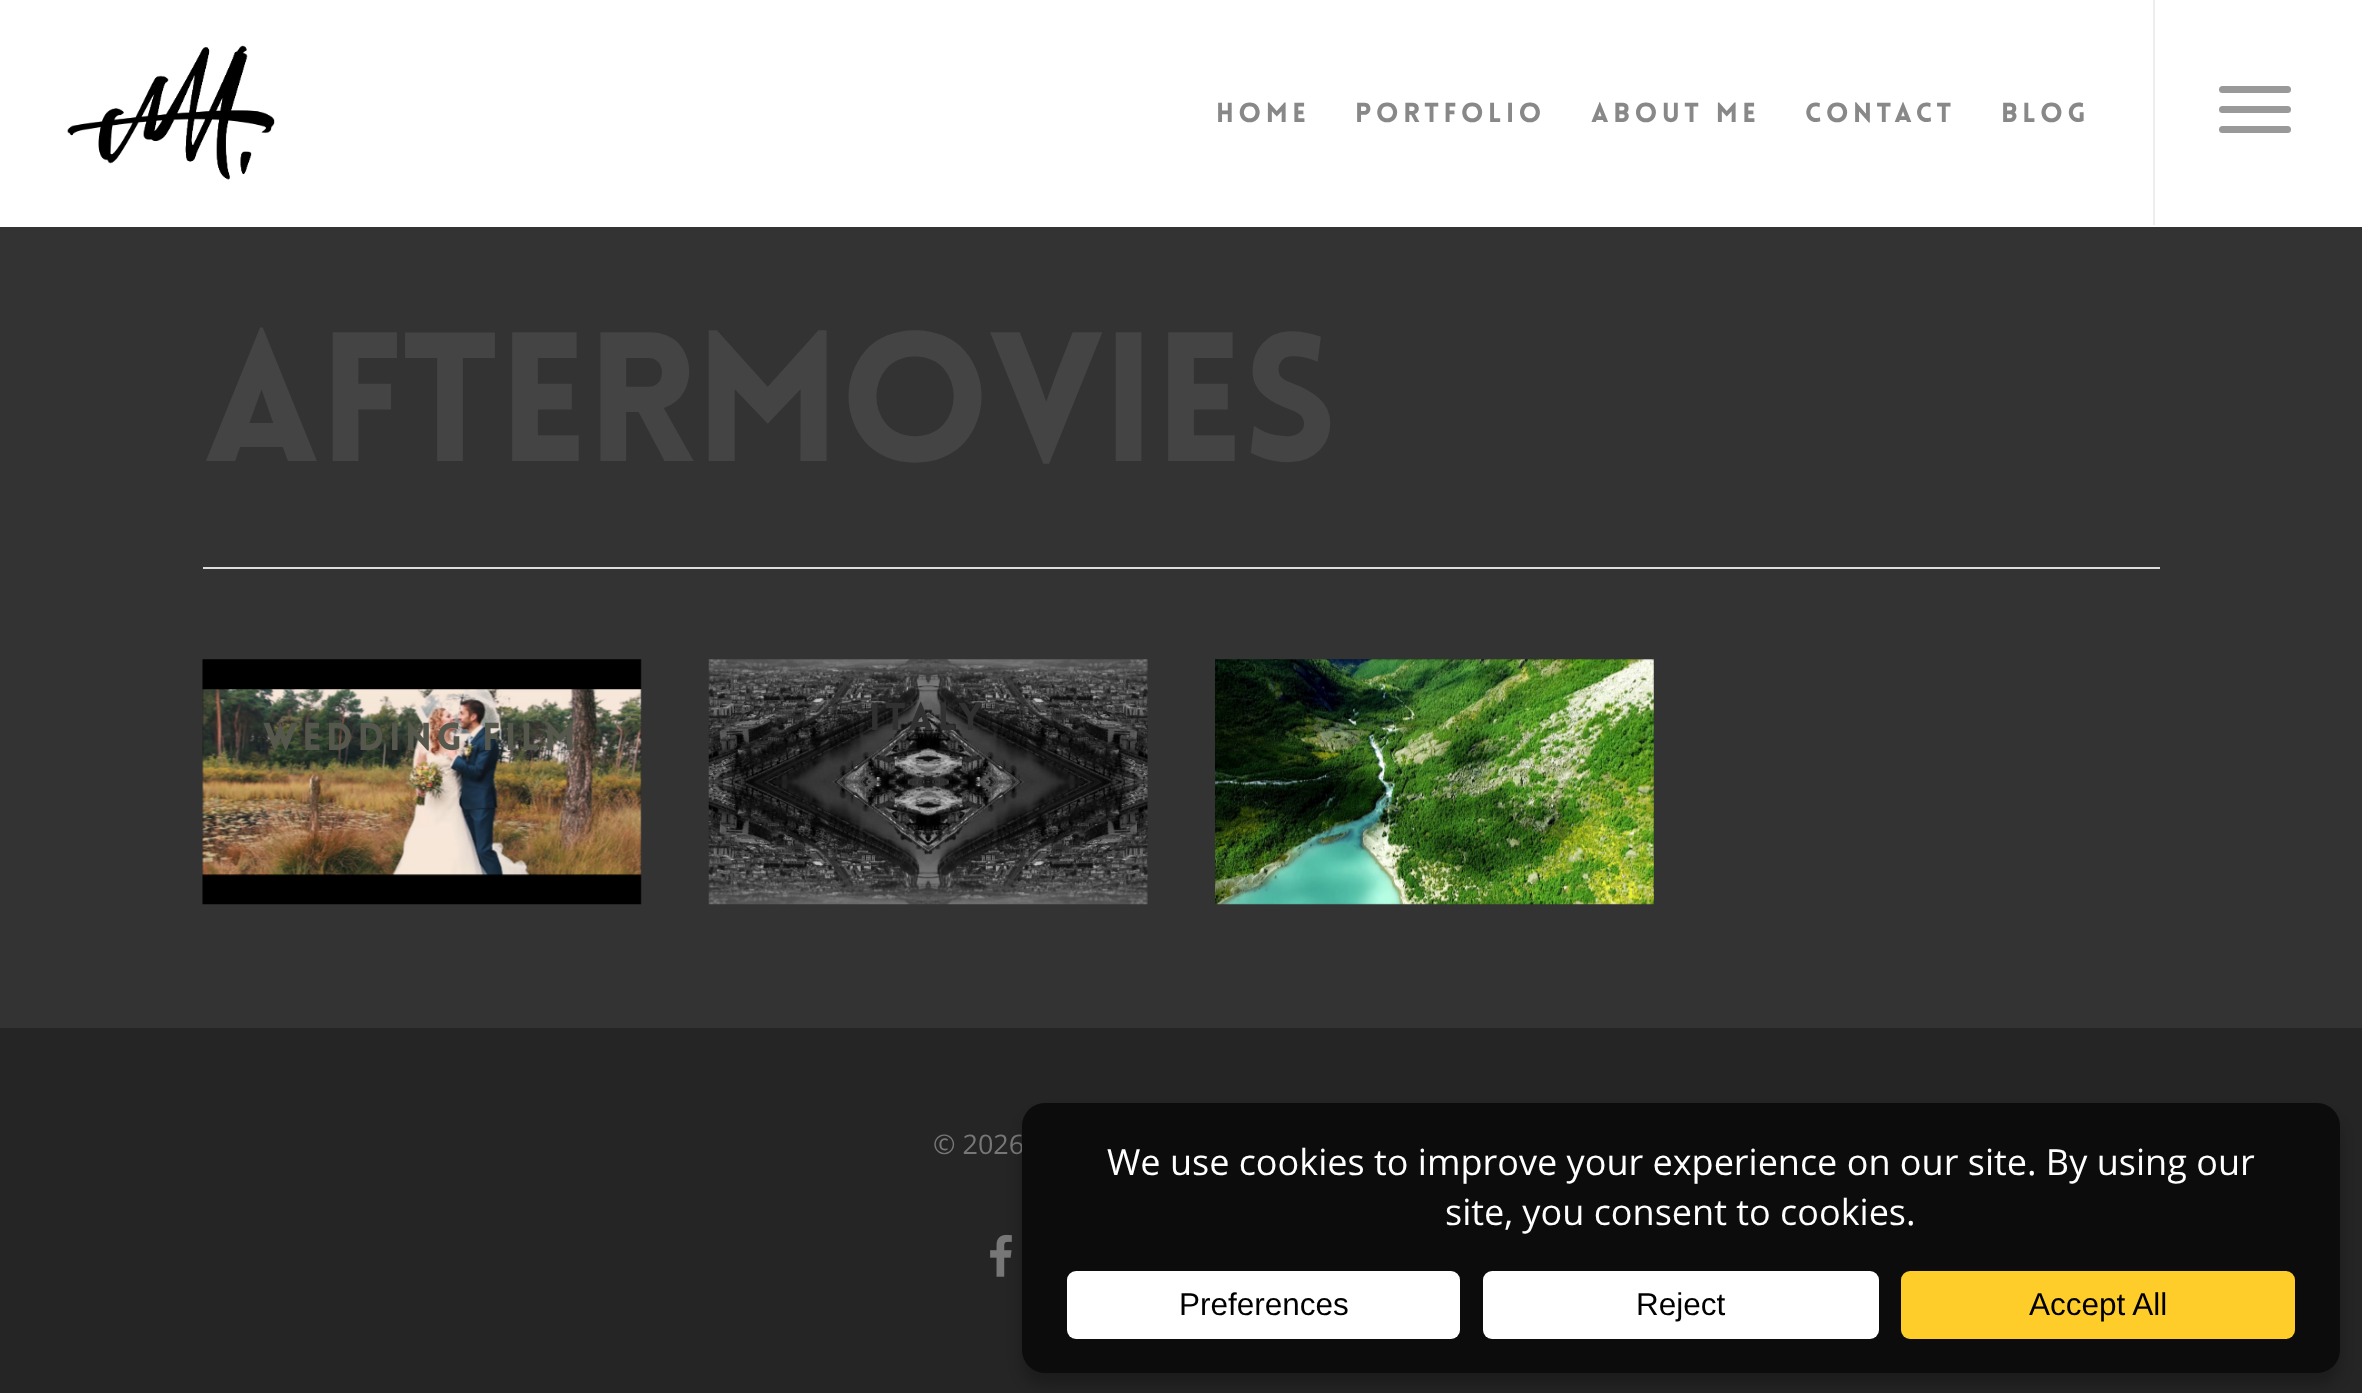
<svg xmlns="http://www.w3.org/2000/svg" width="2362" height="1393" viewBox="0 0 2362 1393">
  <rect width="100%" height="100%" fill="rgb(37,37,37)"/>
  <rect x="0" y="0" width="2362" height="227" fill="rgb(255,255,255)"/>
  <image x="67" y="45" width="208" height="135" href="pic1.png"/>
  <g font-family="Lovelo" font-size="27" font-weight="900" letter-spacing="4.5" fill="rgb(136,136,136)">
    <text x="1216" y="122">Home</text>
    <text x="1355" y="122">Portfolio</text>
    <text x="1591" y="122">About Me</text>
    <text x="1805" y="122">Contact</text>
    <text x="2001" y="122">BLOG</text>
  </g>
  <rect x="2153" y="0" width="2" height="225" fill="rgb(237,237,237)"/>
  <rect x="2219" y="86" width="72" height="7" rx="3.5" fill="rgb(153,153,153)"/>
  <rect x="2219" y="126" width="72" height="7" rx="3.5" fill="rgb(153,153,153)"/>
  <rect x="2219" y="106" width="72" height="7" rx="3.5" fill="rgb(153,153,153)"/>
  <rect x="0" y="227" width="2362" height="801" fill="rgb(51,51,51)"/>
  <rect x="203" y="567" width="1957" height="2" fill="rgb(221,221,221)"/>
  <text x="203" y="461" font-family="Lovelo" font-size="180" font-weight="900" letter-spacing="-2.25" fill="rgb(68,68,68)">Aftermovies</text>
  <image x="708" y="659" width="440" height="246" href="pic2.png"/>
  <text x="869" y="730" font-family="Lovelo" font-size="38.25" font-weight="900" letter-spacing="4.5" fill="rgb(49,49,49)">Italy</text>
  <image x="1215" y="659" width="439" height="246" href="pic3.png"/>
  <image x="202" y="659" width="440" height="246" href="pic4.png"/>
  <text x="263" y="750" font-family="Lovelo" font-size="38.25" font-weight="900" letter-spacing="4.5" fill="rgb(87,88,77)">Wedding Film</text>
  <text x="933" y="1154" font-family="Open Sans" font-size="27" fill="rgb(119,119,119)">© 2026</text>
  <image x="990" y="1234" width="22" height="43" href="pic5.png"/>
  <rect x="1022" y="1116" width="1318" height="270" rx="23" fill="rgba(0,0,0,0.23)" filter="blur(7px)"/>
  <rect x="1022" y="1103" width="1318" height="270" rx="23" fill="rgb(12,12,12)"/>
  <g font-family="Open Sans" font-size="36" fill="rgb(255,255,255)">
    <text x="1107" y="1175">We use cookies to improve your experience on our site. By using our</text>
    <text x="1445" y="1225">site, you consent to cookies.</text>
  </g>
  <rect x="1067" y="1271" width="393" height="68" rx="9" fill="rgb(255,255,255)"/>
  <text x="1179" y="1315" font-family="Liberation Sans" font-size="31.5" fill="rgb(0,0,0)">Preferences</text>
  <rect x="1483" y="1271" width="396" height="68" rx="9" fill="rgb(255,255,255)"/>
  <text x="1636" y="1315" font-family="Liberation Sans" font-size="31.5" fill="rgb(0,0,0)">Reject</text>
  <rect x="1901" y="1271" width="394" height="68" rx="9" fill="rgb(255,205,42)"/>
  <text x="2029" y="1315" font-family="Liberation Sans" font-size="31.5" fill="rgb(0,0,0)">Accept All</text>
</svg>
